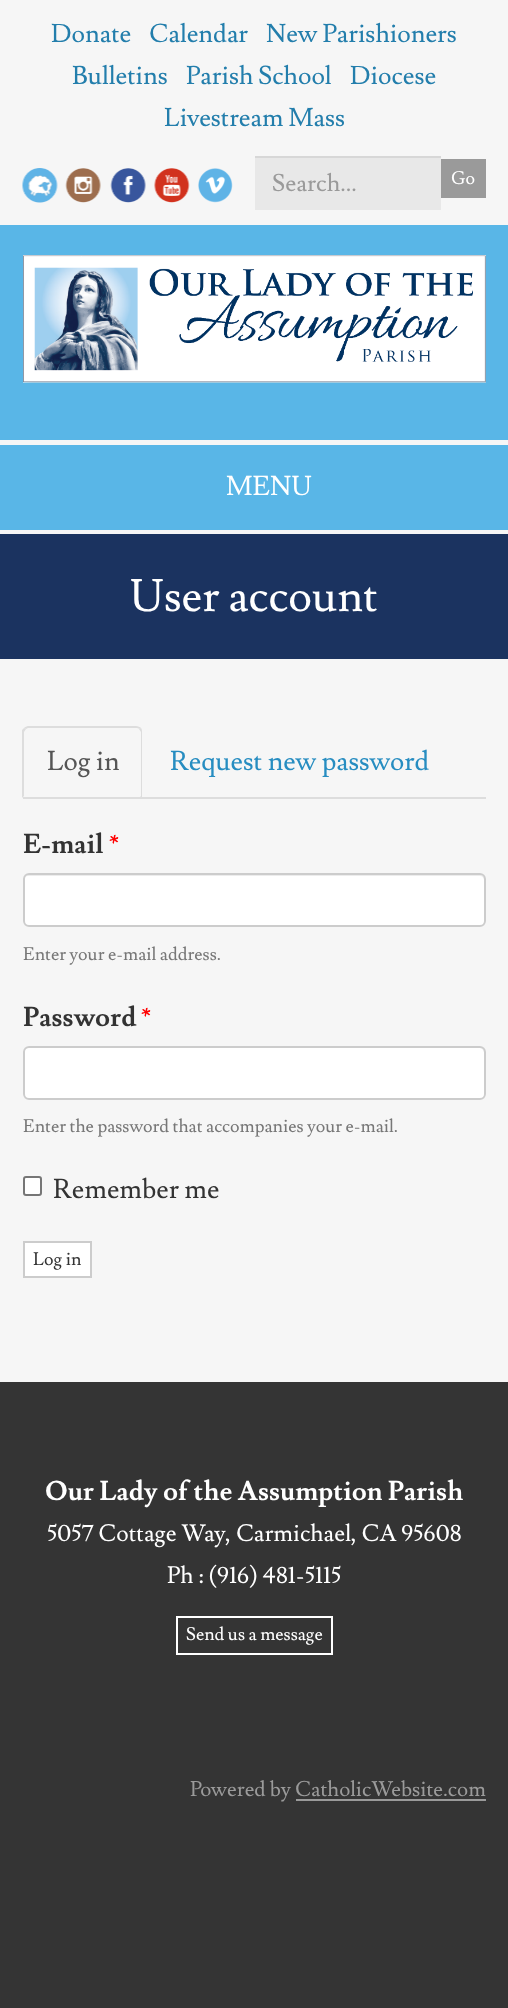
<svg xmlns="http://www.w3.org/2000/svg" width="508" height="2008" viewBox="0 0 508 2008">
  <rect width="100%" height="100%" fill="rgb(52,52,52)"/>
  <rect x="0" y="0" width="508" height="225" fill="rgb(246,246,246)"/>
  <g font-family="Lusitana" font-size="25.5" fill="rgb(35,126,172)">
    <text x="51" y="42">Donate</text>
    <text x="149" y="42">Calendar</text>
    <text x="266" y="42">New Parishioners</text>
    <text x="72" y="84">Bulletins</text>
    <text x="186" y="84">Parish School</text>
    <text x="350" y="84">Diocese</text>
    <text x="164" y="126">Livestream Mass</text>
  </g>
  <image x="22" y="168" width="36" height="35" href="pic1.png"/>
  <image x="65" y="168" width="36" height="35" href="pic2.png"/>
  <image x="110" y="168" width="36" height="35" href="pic3.png"/>
  <image x="154" y="168" width="36" height="35" href="pic4.png"/>
  <image x="198" y="168" width="35" height="35" href="pic5.png"/>
  <rect x="255" y="158" width="186" height="52" fill="rgb(232,232,232)"/>
  <rect x="255" y="156" width="186" height="2" fill="rgb(215,215,215)"/>
  <text x="272" y="191" font-family="Lusitana" font-size="24" fill="rgb(154,154,154)">Search...</text>
  <rect x="441" y="159" width="45" height="39" fill="rgb(154,154,154)"/>
  <text x="451" y="184" font-family="Lusitana" font-size="18" fill="rgb(255,255,255)">Go</text>
  <rect x="0" y="225" width="508" height="305" fill="rgb(89,182,231)"/>
  <image x="23" y="255" width="463" height="128" href="pic6.png"/>
  <rect x="0" y="440" width="508" height="5" fill="rgb(246,246,246)"/>
  <text x="226" y="495" font-family="Lusitana" font-size="27" fill="rgb(255,255,255)">MENU</text>
  <rect x="0" y="530" width="508" height="852" fill="rgb(246,246,246)"/>
  <rect x="0" y="534" width="508" height="125" fill="rgb(27,51,96)"/>
  <text x="130" y="611" font-family="Lusitana" font-size="45" fill="rgb(255,255,255)">User account</text>
  <rect x="23" y="797" width="463" height="2" fill="rgb(221,221,221)"/>
  <path d="M28 726C27 726 25 727 24 728L26 729L28 728H136C137 728 139 728 139 729L141 728C140 727 138 726 136 726Z" fill="rgb(221,221,221)"/>
  <path d="M141 728C142 729 142 731 142 732V798L140 796H141V732L139 729Z" fill="rgb(221,221,221)"/>
  <path d="M22 798V730L24 728L26 729L24 732V796Z" fill="rgb(221,221,221)"/>
  <text x="47" y="770" font-family="Lusitana" font-size="27" fill="rgb(85,85,85)">Log in</text>
  <text x="170" y="770" font-family="Lusitana" font-size="27" fill="rgb(39,141,193)">Request new password</text>
  <text x="23" y="853" font-family="Lusitana" font-size="27" font-weight="bold" fill="rgb(51,51,51)">E-mail</text>
  <text x="109" y="853" font-family="Lusitana" font-size="27" font-weight="bold" fill="rgb(255,0,0)">*</text>
  <rect x="23" y="873" width="463" height="54" rx="6" fill="rgb(255,255,255)"/>
  <path d="M28 876H480C482 876 484 878 484 880V922L483 925C484 924 485 922 485 921V880C485 877 483 875 480 875H29C26 875 24 877 24 880C24 878 26 876 28 876Z" fill="rgb(236,236,236)"/>
  <rect x="24" y="874" width="461" height="52" rx="5" fill="none" stroke="rgb(204,204,204)" stroke-width="2"/>
  <text x="23" y="960" font-family="Lusitana" font-size="18" fill="rgb(119,119,119)">Enter your e-mail address.</text>
  <text x="23" y="1026" font-family="Lusitana" font-size="27" font-weight="bold" fill="rgb(51,51,51)">Password</text>
  <text x="141" y="1026" font-family="Lusitana" font-size="27" font-weight="bold" fill="rgb(255,0,0)">*</text>
  <rect x="23" y="1046" width="463" height="54" rx="6" fill="rgb(255,255,255)"/>
  <path d="M28 1048H480C482 1048 484 1051 484 1053V1096C485 1095 485 1094 485 1093V1052C485 1049 483 1047 480 1047H29C26 1047 24 1049 24 1052V1053C24 1051 26 1048 28 1048Z" fill="rgb(236,236,236)"/>
  <rect x="24" y="1047" width="461" height="52" rx="5" fill="none" stroke="rgb(204,204,204)" stroke-width="2"/>
  <text x="23" y="1132" font-family="Lusitana" font-size="18" fill="rgb(119,119,119)">Enter the password that accompanies your e-mail.</text>
  <rect x="24" y="1177" width="17" height="18" rx="2" fill="rgb(255,255,255)" stroke="rgb(118,118,118)" stroke-width="2"/>
  <text x="53" y="1198" font-family="Lusitana" font-size="27" fill="rgb(51,51,51)">Remember me</text>
  <rect x="24" y="1242" width="67" height="35" fill="rgb(255,255,255)" stroke="rgb(204,204,204)" stroke-width="2"/>
  <text x="33" y="1265" font-family="Lusitana" font-size="18" fill="rgb(51,51,51)">Log in</text>
  <text x="45" y="1500" font-family="Lusitana" font-size="27" font-weight="bold" fill="rgb(255,255,255)">Our Lady of the Assumption Parish</text>
  <g font-family="Lusitana" font-size="23.5" fill="rgb(255,255,255)">
    <text x="47" y="1541">5057 Cottage Way, Carmichael, CA 95608</text>
    <text x="167" y="1583">Ph : (916) 481-5115</text>
  </g>
  <rect x="177" y="1617" width="155" height="37" fill="none" stroke="rgb(255,255,255)" stroke-width="2"/>
  <text x="186" y="1640" font-family="Lusitana" font-size="18" fill="rgb(255,255,255)">Send us a message</text>
  <text x="190" y="1796" font-family="Lusitana" font-size="21" fill="rgb(154,154,154)">Powered by CatholicWebsite.com</text>
  <rect x="296" y="1799" width="190" height="2" fill="rgb(154,154,154)"/>
</svg>
